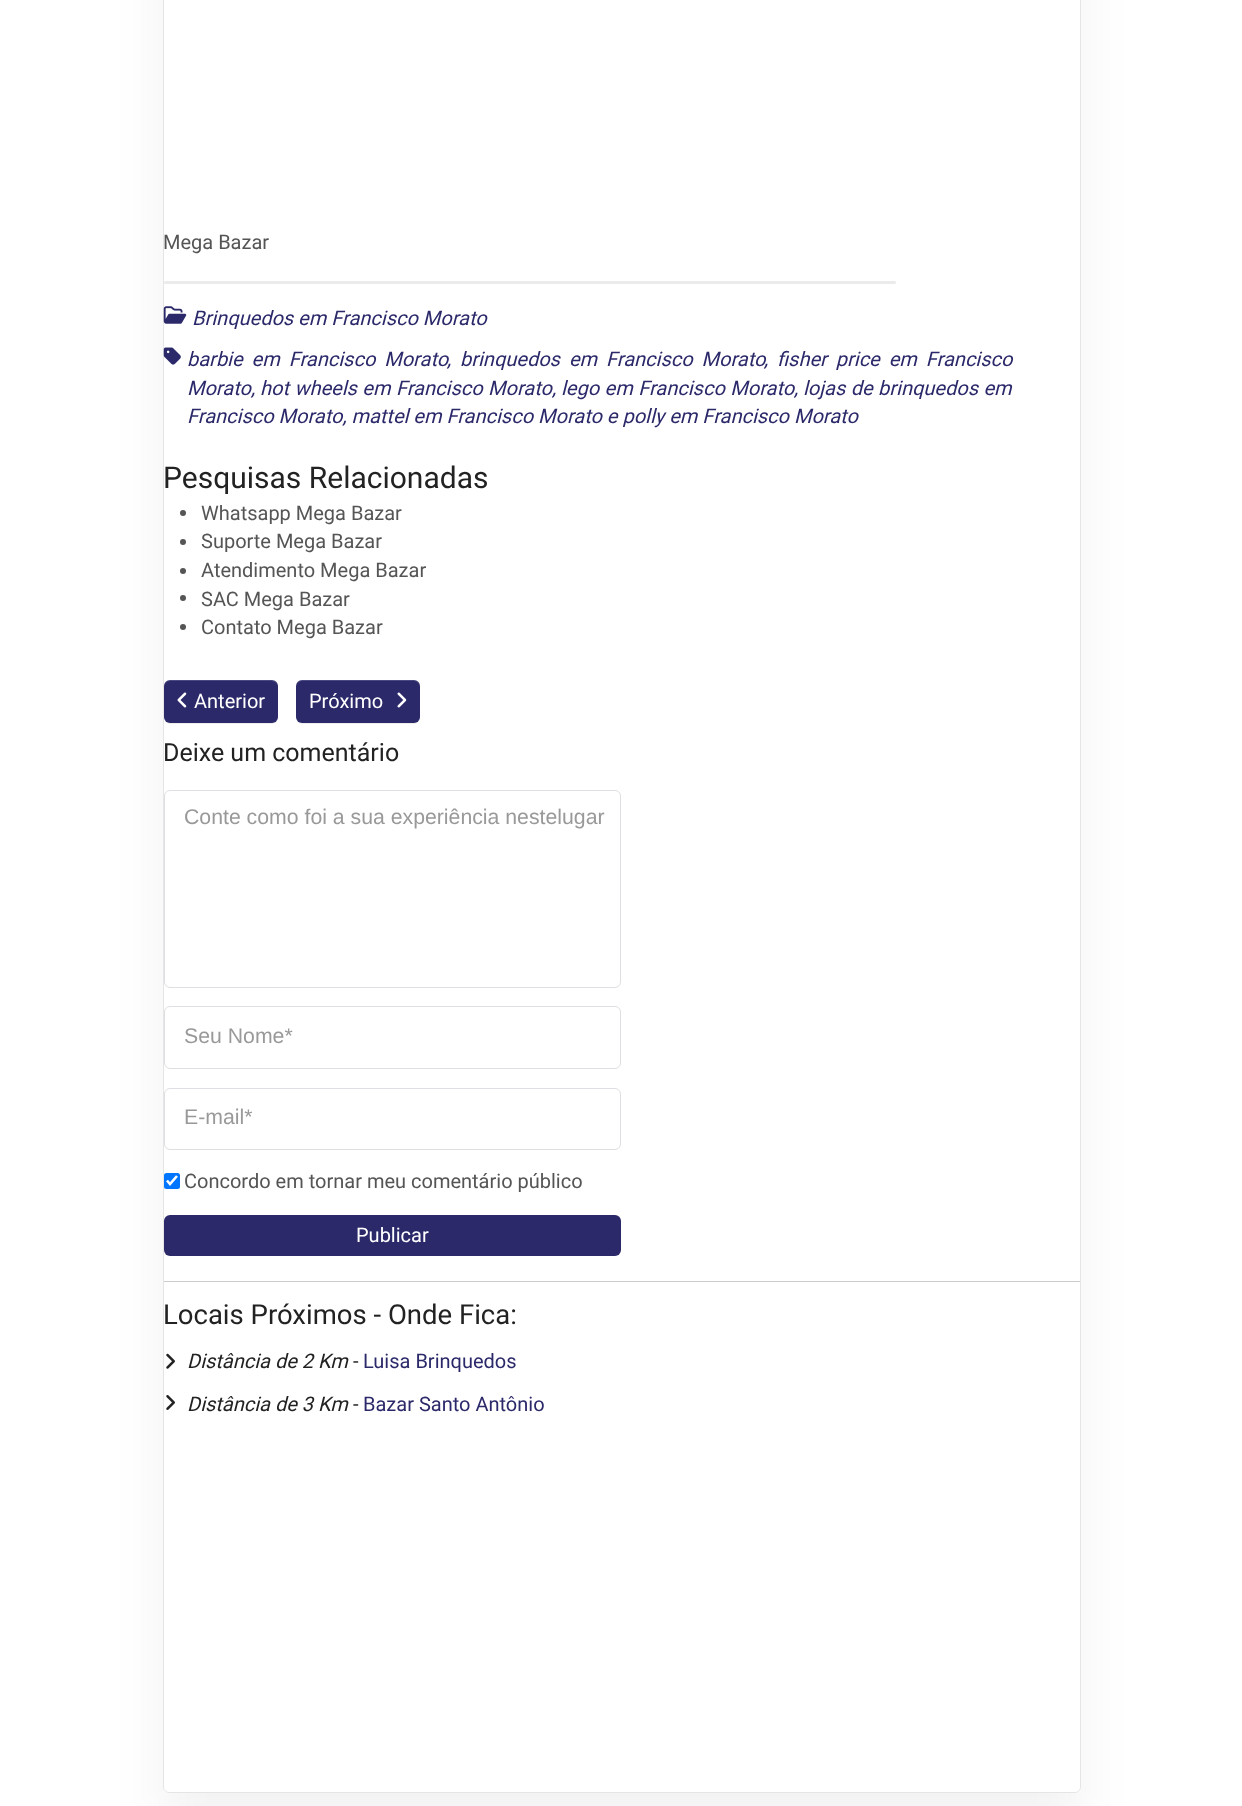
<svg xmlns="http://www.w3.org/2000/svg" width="1242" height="1806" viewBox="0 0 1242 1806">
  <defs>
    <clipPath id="clip1"><path d="M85 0H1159V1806H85ZM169-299H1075C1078.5-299 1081-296.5 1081-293V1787C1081 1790.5 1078.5 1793 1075 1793H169C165.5 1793 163 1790.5 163 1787V-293C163-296.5 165.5-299 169-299Z" clip-rule="evenodd"/></clipPath>
  </defs>
  <rect width="100%" height="100%" fill="rgb(255,255,255)"/>
  <g clip-path="url(#clip1)">
    <rect x="163" y="-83" width="918" height="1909" rx="6" fill="rgba(0,0,0,0.05)" filter="blur(25.5px)"/>
  </g>
  <rect x="163.5" y="-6.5" width="917" height="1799" rx="5.5" fill="none" stroke="rgba(0,0,0,0.1)"/>
  <text x="163" y="249" font-family="Roboto" font-size="20" fill="rgb(85,85,85)">Mega Bazar</text>
  <rect x="164" y="281" width="732" height="3" rx="1.5" fill="rgb(235,235,235)"/>
  <image x="163" y="306" width="24" height="18" href="pic1.png"/>
  <text x="192" y="325" font-family="Roboto" font-size="20" font-style="italic" fill="rgb(43,41,106)">Brinquedos em Francisco Morato</text>
  <image x="163" y="347" width="18" height="18" href="pic2.png"/>
  <g font-family="Roboto" font-size="20" font-style="italic" fill="rgb(43,41,106)">
    <text x="187" y="366" word-spacing="4">barbie em Francisco Morato</text>
    <text x="447" y="366">,</text>
    <text x="460" y="366" word-spacing="4">brinquedos em Francisco Morato</text>
    <text x="777" y="366" word-spacing="4">fisher price em Francisco</text>
    <text x="764" y="366">,</text>
    <text x="187" y="395">Morato,</text>
    <text x="260" y="395" word-spacing="0.5">hot wheels em Francisco Morato</text>
    <text x="552" y="395">,</text>
    <text x="561" y="395" word-spacing="0.5">lego em Francisco Morato</text>
    <text x="794" y="395">,</text>
    <text x="803" y="395" word-spacing="0.5">lojas de brinquedos em</text>
    <text x="187" y="423">Francisco Morato, mattel em Francisco Morato e polly em Francisco Morato</text>
  </g>
  <text x="163" y="488" font-family="Roboto" font-size="30" fill="rgb(34,34,34)">Pesquisas Relacionadas</text>
  <circle cx="183" cy="513" r="3" fill="rgb(85,85,85)"/>
  <text x="201" y="520" font-family="Roboto" font-size="20" fill="rgb(85,85,85)">Whatsapp Mega Bazar</text>
  <circle cx="183" cy="542" r="3" fill="rgb(85,85,85)"/>
  <text x="201" y="548" font-family="Roboto" font-size="20" fill="rgb(85,85,85)">Suporte Mega Bazar</text>
  <circle cx="183" cy="571" r="3" fill="rgb(85,85,85)"/>
  <text x="201" y="577" font-family="Roboto" font-size="20" fill="rgb(85,85,85)">Atendimento Mega Bazar</text>
  <circle cx="183" cy="598" r="3" fill="rgb(85,85,85)"/>
  <text x="201" y="606" font-family="Roboto" font-size="20" fill="rgb(85,85,85)">SAC Mega Bazar</text>
  <circle cx="183" cy="627" r="3" fill="rgb(85,85,85)"/>
  <text x="201" y="634" font-family="Roboto" font-size="20" fill="rgb(85,85,85)">Contato Mega Bazar</text>
  <rect x="164" y="681" width="114" height="43" rx="6" fill="rgba(0,0,0,0.07)" filter="blur(0.5px)"/>
  <rect x="164" y="680" width="114" height="43" rx="6" fill="rgb(43,41,106)"/>
  <path d="M170 681H271C275 681 278 684 278 688C278 676 264 680 255 680H187C178 680 164 676 164 688C164 684 167 681 170 681Z" fill="rgba(255,255,255,0.15)"/>
  <image x="177" y="692" width="10" height="16" href="pic3.png"/>
  <text x="194" y="708" font-family="Roboto" font-size="20" fill="rgb(255,255,255)">Anterior</text>
  <rect x="296" y="681" width="124" height="43" rx="6" fill="rgba(0,0,0,0.07)" filter="blur(0.5px)"/>
  <rect x="296" y="680" width="124" height="43" rx="6" fill="rgb(43,41,106)"/>
  <path d="M302 681H414C417 681 420 684 420 688V686C420 683 417 680 414 680H302C299 680 296 683 296 686V688C296 684 299 681 302 681Z" fill="rgba(255,255,255,0.15)"/>
  <text x="309" y="708" font-family="Roboto" font-size="20" fill="rgb(255,255,255)">Próximo</text>
  <image x="397" y="692" width="10" height="16" href="pic4.png"/>
  <text x="163" y="761" font-family="Roboto" font-size="25" fill="rgb(34,34,34)">Deixe um comentário</text>
  <rect x="164.5" y="790.5" width="456" height="197" rx="5.5" fill="none" stroke="rgb(221,223,226)"/>
  <text x="184" y="824" font-family="Liberation Sans" font-size="21.25" fill="rgb(153,153,153)">Conte como foi a sua experiência nestelugar</text>
  <rect x="164.5" y="1006.5" width="456" height="62" rx="5.5" fill="none" stroke="rgb(221,223,226)"/>
  <text x="184" y="1043" font-family="Liberation Sans" font-size="21.25" fill="rgb(153,153,153)">Seu Nome*</text>
  <rect x="164.5" y="1088.5" width="456" height="61" rx="5.5" fill="none" stroke="rgb(221,223,226)"/>
  <text x="184" y="1124" font-family="Liberation Sans" font-size="21.25" fill="rgb(153,153,153)">E-mail*</text>
  <rect x="164" y="1173" width="16" height="16" rx="2.5" fill="rgb(0,117,255)"/>
  <path d="M167 1180.5L170 1184L177 1176" fill="none" stroke="rgb(255,255,255)" stroke-width="2.6"/>
  <text x="184" y="1188" font-family="Roboto" font-size="20" fill="rgb(85,85,85)">Concordo em tornar meu comentário público</text>
  <rect x="164" y="1215" width="457" height="41" rx="6" fill="rgb(43,41,106)"/>
  <text x="356" y="1242" font-family="Roboto" font-size="20" fill="rgb(255,255,255)">Publicar</text>
  <rect x="164" y="1281" width="916" height="1" fill="rgb(204,204,204)"/>
  <text x="163" y="1324" font-family="Roboto" font-size="27.5" fill="rgb(34,34,34)">Locais Próximos - Onde Fica:</text>
  <image x="166" y="1353" width="9" height="16" href="pic5.png"/>
  <text x="187" y="1368" font-family="Roboto" font-size="20" font-style="italic" fill="rgb(34,34,34)">Distância de 2 Km</text>
  <text x="353" y="1368" font-family="Roboto" font-size="20" fill="rgb(34,34,34)">-</text>
  <text x="363" y="1368" font-family="Roboto" font-size="20" fill="rgb(43,41,106)">Luisa Brinquedos</text>
  <image x="166" y="1395" width="9" height="15" href="pic6.png"/>
  <text x="187" y="1411" font-family="Roboto" font-size="20" font-style="italic" fill="rgb(34,34,34)">Distância de 3 Km</text>
  <text x="353" y="1411" font-family="Roboto" font-size="20" fill="rgb(34,34,34)">-</text>
  <text x="363" y="1411" font-family="Roboto" font-size="20" fill="rgb(43,41,106)">Bazar Santo Antônio</text>
</svg>
